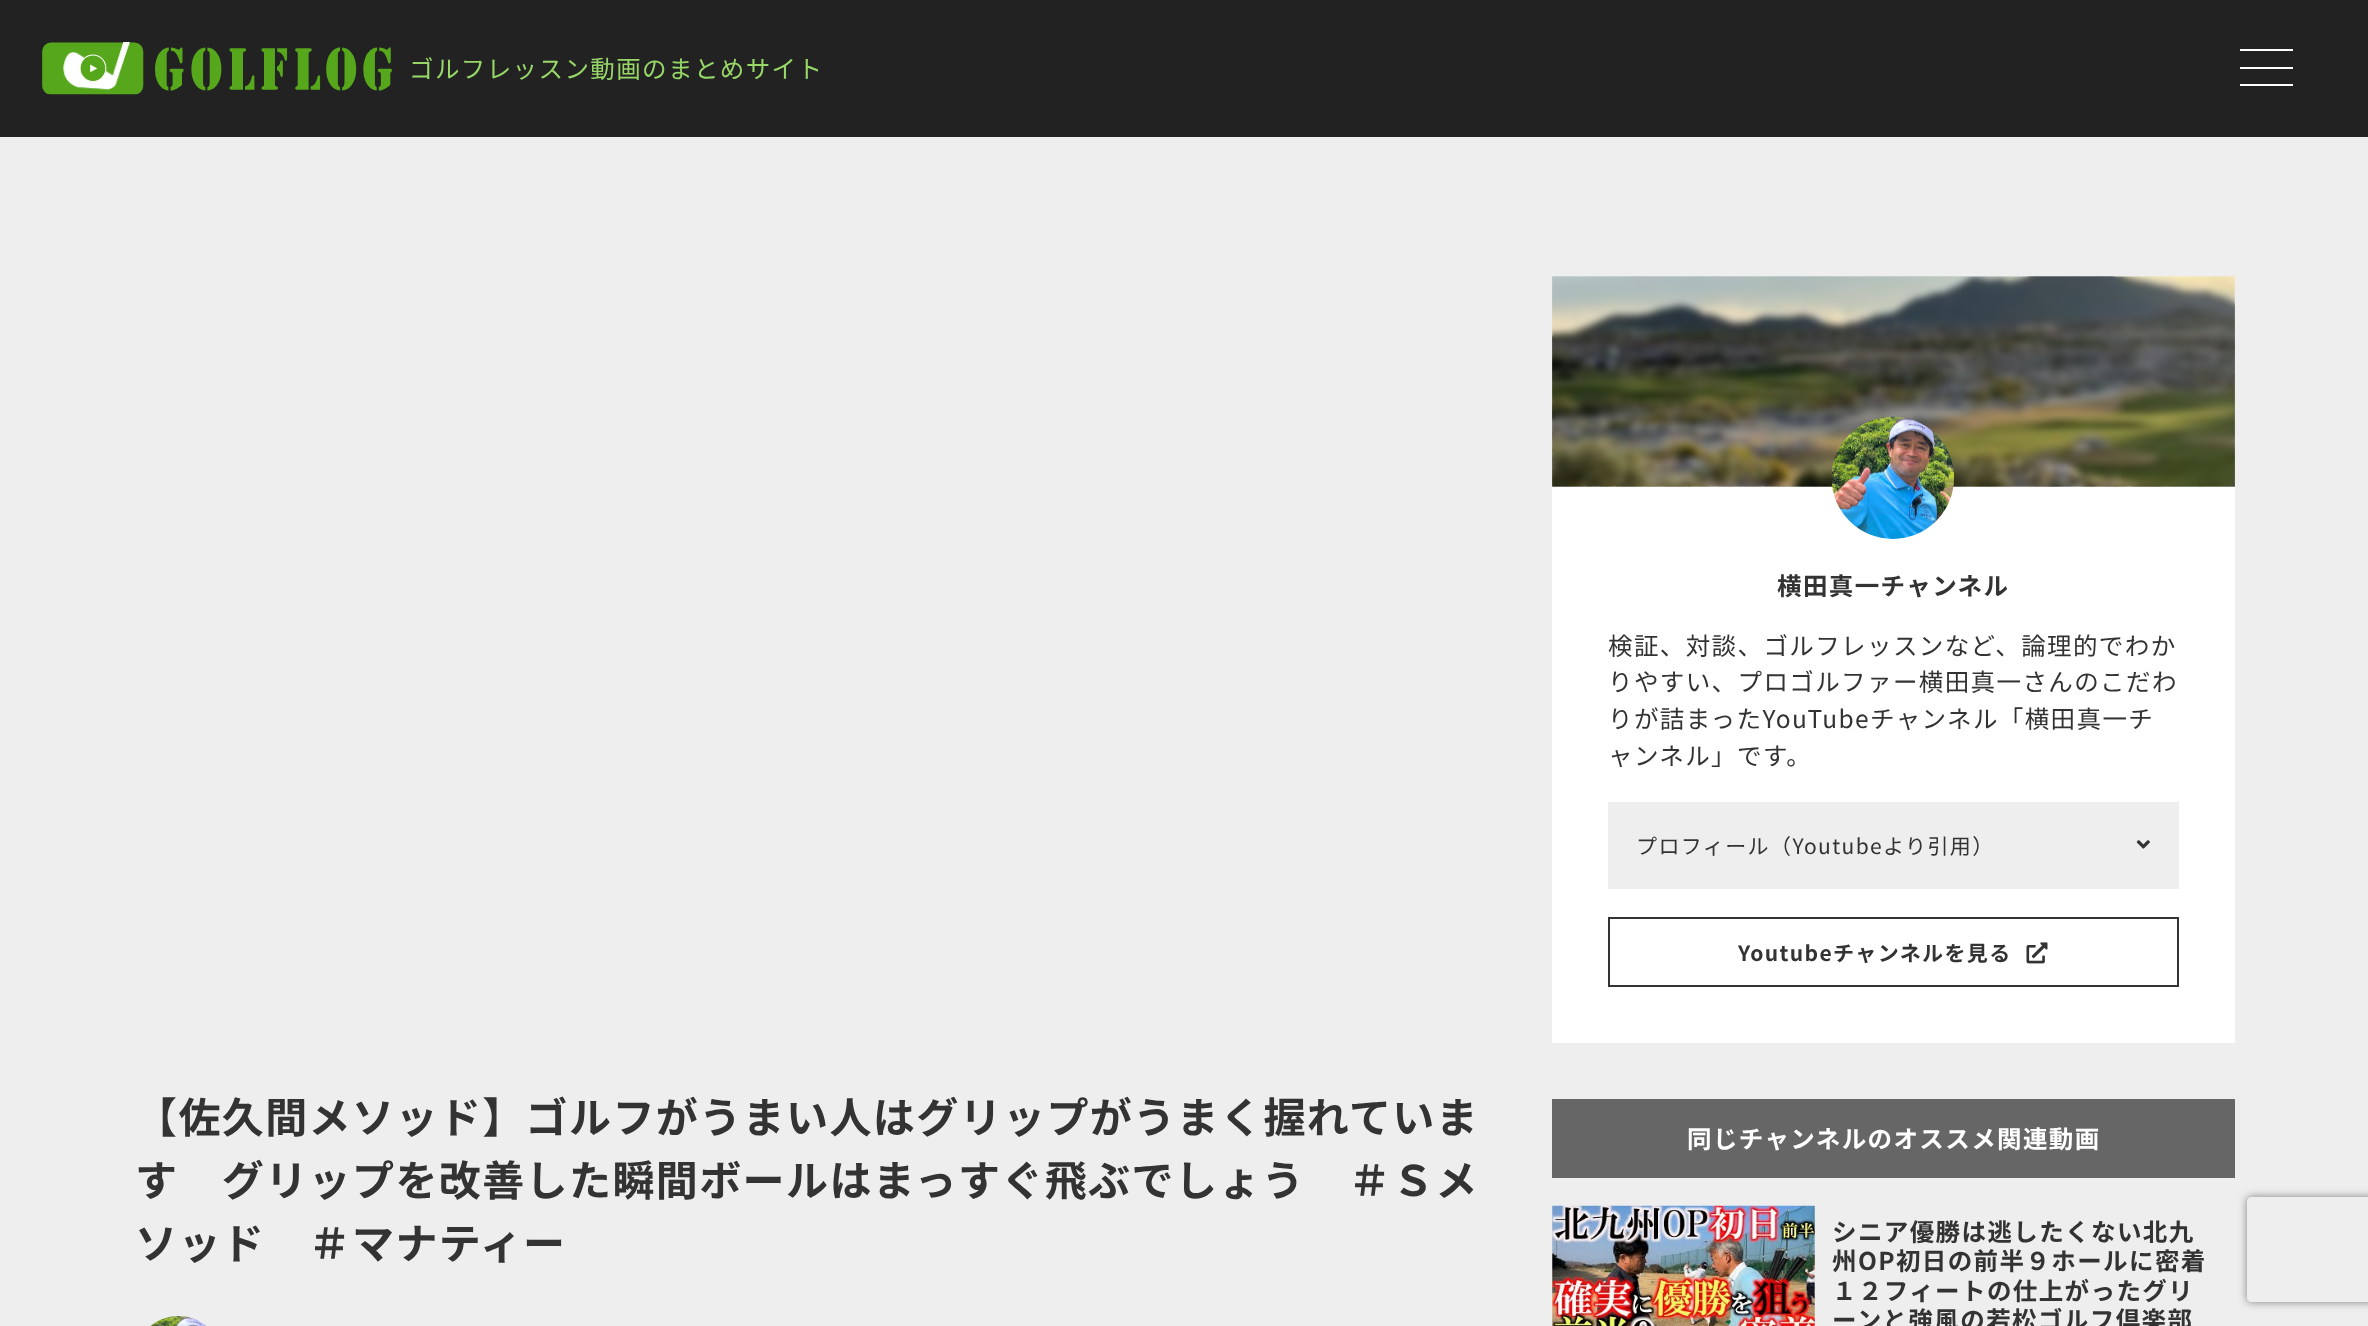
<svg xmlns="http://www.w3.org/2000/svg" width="2368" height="1326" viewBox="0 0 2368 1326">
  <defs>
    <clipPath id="clip1"><path d="M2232 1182H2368V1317H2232ZM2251 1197H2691C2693 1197 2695 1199 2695 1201V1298C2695 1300 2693 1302 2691 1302H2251C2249 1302 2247 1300 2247 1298V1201C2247 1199 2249 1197 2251 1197Z" clip-rule="evenodd"/></clipPath>
  </defs>
  <rect width="100%" height="100%" fill="rgb(34,34,34)"/>
  <image x="42" y="42" width="350" height="53" href="pic1.png"/>
  <text x="409" y="78" font-family="Noto Sans JP" font-size="24.5" letter-spacing="1.4" fill="rgb(150,215,104)">ゴルフレッスン動画のまとめサイト</text>
  <rect x="2240" y="49" width="53" height="2" fill="rgb(255,255,255)"/>
  <rect x="2240" y="67" width="53" height="2" fill="rgb(255,255,255)"/>
  <rect x="2240" y="84" width="53" height="2" fill="rgb(255,255,255)"/>
  <rect x="0" y="137" width="2368" height="1189" fill="rgb(238,238,238)"/>
  <g font-family="Noto Sans JP" font-size="42" font-weight="bold" letter-spacing="1.4" fill="rgb(51,51,51)">
    <text>
      <tspan x="135" y="1133">【佐久間メソッド】ゴルフがうまい人はグリップがうまく握れていま</tspan>
      <tspan x="135" y="1196">す　グリップを改善した瞬間ボールはまっすぐ飛ぶでしょう　＃Ｓメ</tspan>
      <tspan x="135" y="1259">ソッド　＃マナティー</tspan>
    </text>
  </g>
  <image x="150" y="1316" width="57" height="10" href="pic2.png"/>
  <rect x="1552" y="277" width="683" height="766" fill="rgb(255,255,255)"/>
  <image x="1552" y="276" width="683" height="211" href="pic3.png"/>
  <image x="1552" y="276" width="683" height="211" href="pic4.png"/>
  <image x="1831" y="416" width="123" height="123" href="pic5.png"/>
  <text x="1777" y="595" font-family="Noto Sans JP" font-size="24.5" font-weight="bold" letter-spacing="1.4" fill="rgb(51,51,51)">横田真一チャンネル</text>
  <g font-family="Noto Sans JP" font-size="24.5" letter-spacing="1.4" fill="rgb(51,51,51)">
    <text>
      <tspan x="1608" y="655">検証、対談、ゴルフレッスンなど、論理的でわか</tspan>
      <tspan x="1608" y="691">りやすい、プロゴルファー横田真一さんのこだわ</tspan>
      <tspan x="1608" y="728">りが詰まったYouTubeチャンネル「横田真一チ</tspan>
      <tspan x="1608" y="765">ャンネル」です。</tspan>
    </text>
  </g>
  <rect x="1608" y="802" width="571" height="87" fill="rgb(238,238,238)"/>
  <text x="1636" y="854" font-family="Noto Sans JP" font-size="21" letter-spacing="1.4" fill="rgb(51,51,51)">プロフィール（Youtubeより引用）</text>
  <image x="2136" y="840" width="14" height="9" href="pic6.png"/>
  <rect x="1609" y="918" width="569" height="68" fill="none" stroke="rgb(51,51,51)" stroke-width="2"/>
  <text x="1738" y="961" font-family="Noto Sans JP" font-size="21" font-weight="bold" letter-spacing="1.4" fill="rgb(51,51,51)">Youtubeチャンネルを見る</text>
  <image x="2026" y="942" width="22" height="22" href="pic7.png"/>
  <rect x="1552" y="1099" width="683" height="79" fill="rgb(102,102,102)"/>
  <text x="1687" y="1148" font-family="Noto Sans JP" font-size="24.5" font-weight="bold" letter-spacing="1.4" fill="rgb(255,255,255)">同じチャンネルのオススメ関連動画</text>
  <image x="1552" y="1205" width="263" height="121" href="pic8.png"/>
  <g font-family="Noto Sans JP" font-size="24.5" font-weight="bold" letter-spacing="1.4" fill="rgb(51,51,51)">
    <text>
      <tspan x="1832" y="1241">シニア優勝は逃したくない北九</tspan>
      <tspan x="1832" y="1270">州OP初日の前半９ホールに密着</tspan>
      <tspan x="1832" y="1300">１２フィートの仕上がったグリ</tspan>
      <tspan x="1832" y="1329">ーンと強風の若松ゴルフ倶楽部</tspan>
    </text>
  </g>
  <g clip-path="url(#clip1)">
    <rect x="2247" y="1197" width="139" height="105" rx="4" fill="rgb(128,128,128)" filter="blur(4.5px)"/>
  </g>
</svg>
